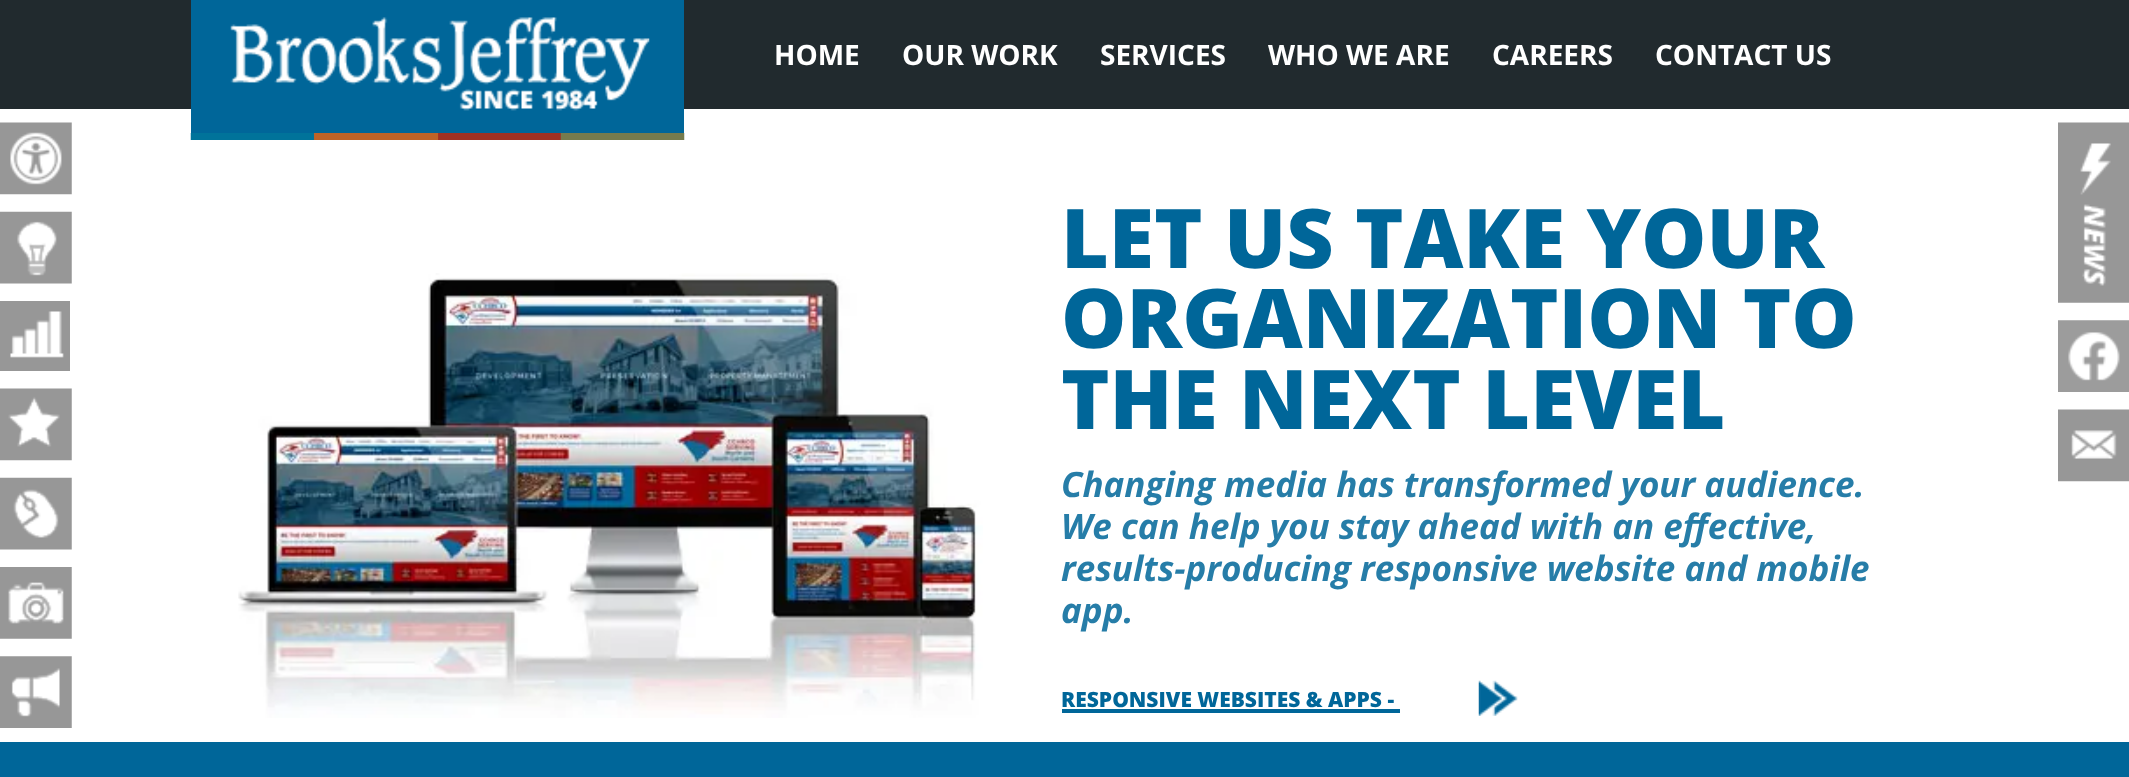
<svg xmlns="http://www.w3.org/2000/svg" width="2129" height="777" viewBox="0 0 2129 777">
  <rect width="100%" height="100%" fill="rgb(255,255,255)"/>
  <rect x="0" y="0" width="2129" height="109" fill="rgb(33,42,46)"/>
  <rect x="191" y="0" width="493" height="133" fill="rgb(0,102,153)"/>
  <image x="230" y="17" width="420" height="94" href="pic1.png"/>
  <image x="190" y="133" width="495" height="7" href="pic2.png"/>
  <g font-family="Open Sans" font-size="28" font-weight="bold" fill="rgb(255,255,255)">
    <text x="774" y="65">HOME</text>
    <text x="902" y="65">OUR WORK</text>
    <text x="1100" y="65">SERVICES</text>
    <text x="1268" y="65">WHO WE ARE</text>
    <text x="1492" y="65">CAREERS</text>
    <text x="1655" y="65">CONTACT US</text>
  </g>
  <image x="0" y="122" width="72" height="73" href="pic3.png"/>
  <image x="0" y="211" width="72" height="73" href="pic4.png"/>
  <image x="0" y="301" width="70" height="70" href="pic5.png"/>
  <image x="0" y="388" width="72" height="73" href="pic6.png"/>
  <image x="0" y="477" width="72" height="73" href="pic7.png"/>
  <image x="0" y="567" width="72" height="72" href="pic8.png"/>
  <image x="0" y="656" width="72" height="72" href="pic9.png"/>
  <image x="238" y="273" width="745" height="445" href="pic10.png"/>
  <g font-family="Open Sans" font-size="82.25" font-weight="800" fill="rgb(0,102,153)">
    <text>
      <tspan x="1061" y="268">LET US TAKE YOUR</tspan>
      <tspan x="1061" y="348">ORGANIZATION TO</tspan>
      <tspan x="1061" y="429">THE NEXT LEVEL</tspan>
    </text>
  </g>
  <g font-family="Open Sans" font-size="35" font-weight="bold" font-style="italic" fill="rgb(38,125,168)">
    <text>
      <tspan x="1061" y="497">Changing media has transformed your audience.</tspan>
      <tspan x="1061" y="539">We can help you stay ahead with an effective,</tspan>
      <tspan x="1061" y="581">results-producing responsive website and mobile</tspan>
      <tspan x="1061" y="623">app.</tspan>
    </text>
  </g>
  <text x="1061" y="707" font-family="Open Sans" font-size="21" font-weight="800" fill="rgb(0,102,153)">RESPONSIVE WEBSITES &amp; APPS -</text>
  <rect x="1062" y="709" width="338" height="4" fill="rgb(0,102,153)"/>
  <image x="1478" y="680" width="40" height="36" href="pic11.png"/>
  <image x="2058" y="122" width="71" height="181" href="pic12.png"/>
  <image x="2058" y="320" width="71" height="72" href="pic13.png"/>
  <image x="2058" y="409" width="71" height="73" href="pic14.png"/>
  <rect x="0" y="742" width="2129" height="35" fill="rgb(0,102,153)"/>
</svg>
